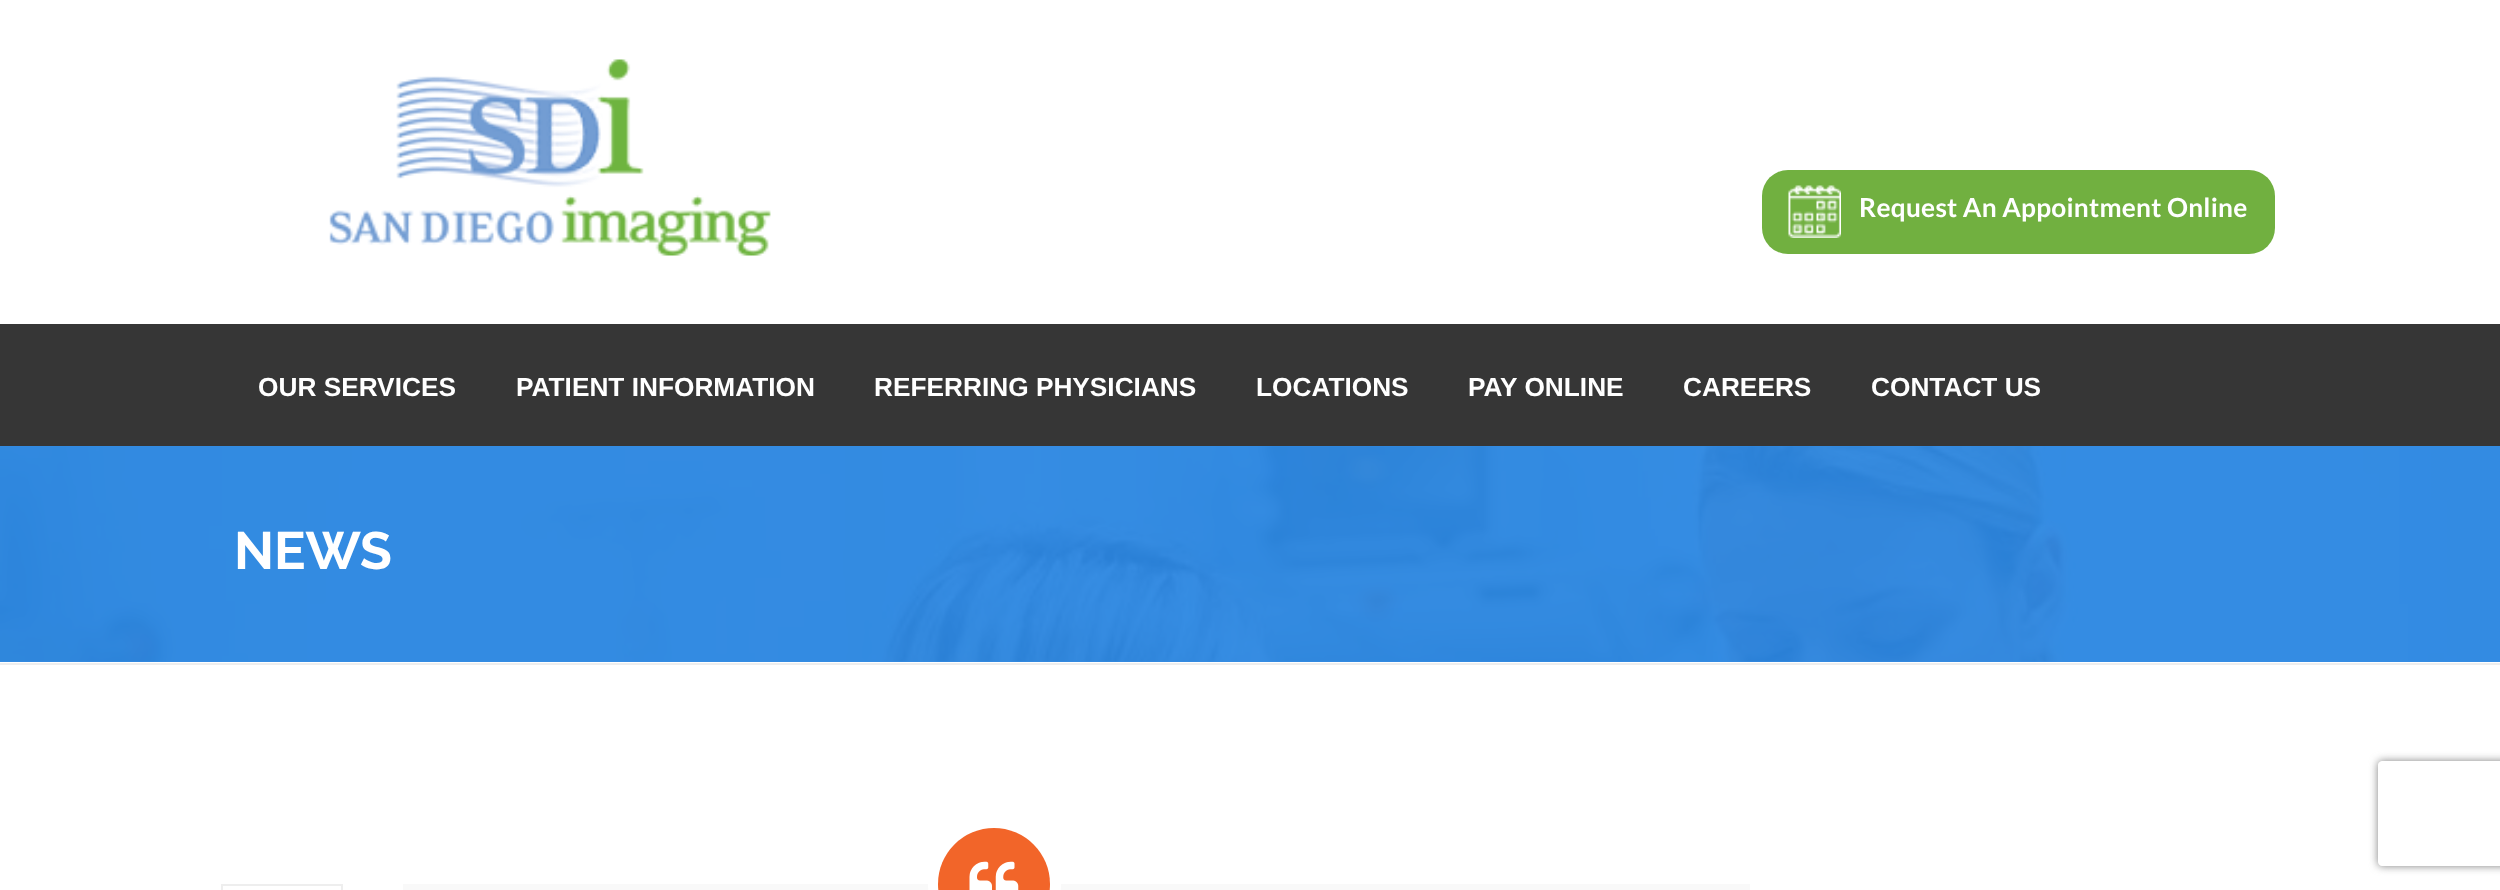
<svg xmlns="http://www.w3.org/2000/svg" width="2500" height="890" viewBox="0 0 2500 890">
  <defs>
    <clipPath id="clip1"><path d="M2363 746H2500V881H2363ZM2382 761H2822C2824 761 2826 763 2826 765V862C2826 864 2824 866 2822 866H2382C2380 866 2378 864 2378 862V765C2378 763 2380 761 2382 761Z" clip-rule="evenodd"/></clipPath>
  </defs>
  <rect width="100%" height="100%" fill="rgb(255,255,255)"/>
  <rect x="0" y="446" width="2500" height="216" fill="rgb(54,141,228)"/>
  <image x="329" y="59" width="442" height="197" href="pic1.png"/>
  <rect x="1762" y="170" width="513" height="84" rx="26" fill="rgb(113,176,64)"/>
  <image x="1788" y="185" width="53" height="53" href="pic2.png"/>
  <text x="1859" y="217" font-family="Lato" font-size="26.25" font-weight="bold" letter-spacing="0.25" fill="rgb(255,255,255)">Request An Appointment Online</text>
  <rect x="0" y="324" width="2500" height="122" fill="rgb(54,54,54)"/>
  <g font-family="Liberation Sans" font-size="26.25" font-weight="bold" fill="rgb(255,255,255)">
    <text x="258" y="396">OUR SERVICES</text>
    <text x="516" y="396">PATIENT INFORMATION</text>
    <text x="874" y="396">REFERRING PHYSICIANS</text>
    <text x="1256" y="396">LOCATIONS</text>
    <text x="1468" y="396">PAY ONLINE</text>
    <text x="1683" y="396">CAREERS</text>
    <text x="1871" y="396">CONTACT US</text>
  </g>
  <image x="0" y="446" width="2500" height="216" href="pic3.png"/>
  <text x="234" y="569" font-family="Raleway" font-size="52.5" font-weight="bold" fill="rgb(255,255,255)">NEWS</text>
  <rect x="0" y="663" width="2500" height="2" fill="rgb(238,238,238)"/>
  <rect x="222" y="885" width="120" height="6" fill="none" stroke="rgb(238,238,238)" stroke-width="2"/>
  <rect x="403" y="884" width="1347" height="6" fill="rgb(249,249,249)"/>
  <circle cx="994.5" cy="883.5" r="61" fill="none" stroke="rgb(255,255,255)" stroke-width="11"/>
  <circle cx="994" cy="884" r="56" fill="rgb(242,101,41)"/>
  <image x="969" y="861" width="50" height="29" href="pic4.png"/>
  <g clip-path="url(#clip1)">
    <rect x="2378" y="761" width="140" height="105" rx="4" fill="rgb(128,128,128)" filter="blur(4.5px)"/>
  </g>
</svg>
